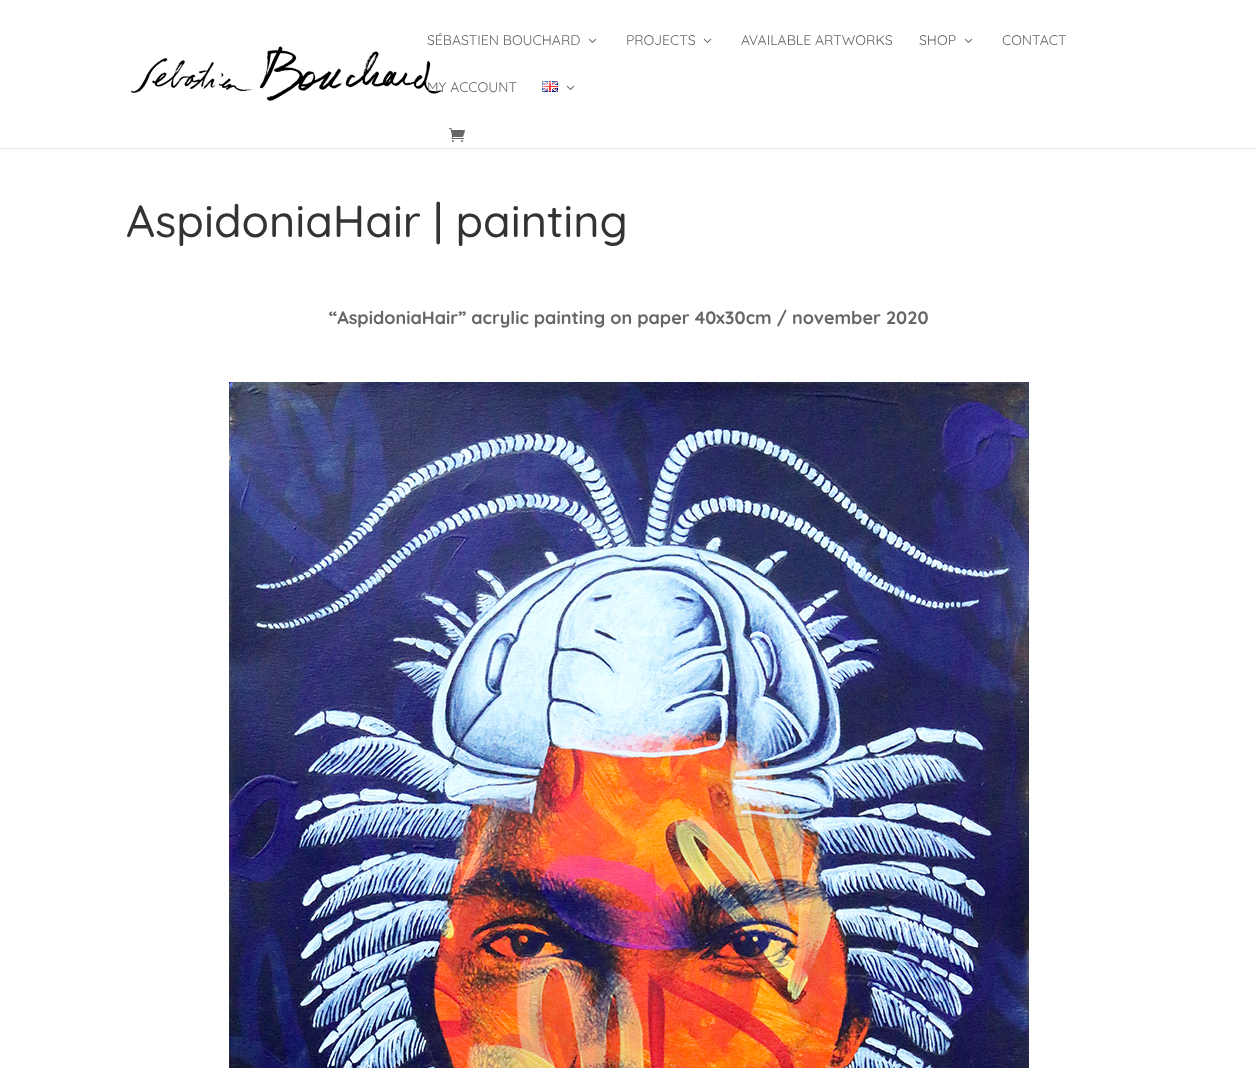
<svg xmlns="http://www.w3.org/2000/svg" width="1257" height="1068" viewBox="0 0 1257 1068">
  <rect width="100%" height="100%" fill="rgb(255,255,255)"/>
  <rect x="0" y="148" width="1257" height="1" fill="rgb(230,230,230)"/>
  <image x="131" y="46" width="312" height="55" href="pic1.png"/>
  <text x="427" y="45" font-family="Quicksand" font-size="14" fill="rgb(102,102,102)">SÉBASTIEN BOUCHARD</text>
  <image x="588" y="38" width="9" height="5" href="pic2.png"/>
  <text x="626" y="45" font-family="Quicksand" font-size="14" fill="rgb(102,102,102)">PROJECTS</text>
  <image x="703" y="38" width="9" height="5" href="pic2.png"/>
  <g font-family="Quicksand" font-size="14" fill="rgb(102,102,102)">
    <text x="741" y="45">AVAILABLE ARTWORKS</text>
    <text x="919" y="45">SHOP</text>
  </g>
  <image x="964" y="38" width="9" height="5" href="pic2.png"/>
  <g font-family="Quicksand" font-size="14" fill="rgb(102,102,102)">
    <text x="1002" y="45">CONTACT</text>
    <text x="427" y="92">MY ACCOUNT</text>
  </g>
  <image x="542" y="81" width="16" height="11" href="pic3.png"/>
  <image x="566" y="85" width="9" height="5" href="pic2.png"/>
  <image x="449" y="128" width="16" height="14" href="pic4.png"/>
  <text x="126" y="237" font-family="Quicksand" font-size="45" font-weight="500" fill="rgb(51,51,51)">AspidoniaHair | painting</text>
  <text x="329" y="324" font-family="Quicksand" font-size="18" font-weight="bold" fill="rgb(102,102,102)">“AspidoniaHair” acrylic painting on paper 40x30cm / november 2020</text>
  <image x="229" y="382" width="800" height="686" href="pic5.png"/>
</svg>
